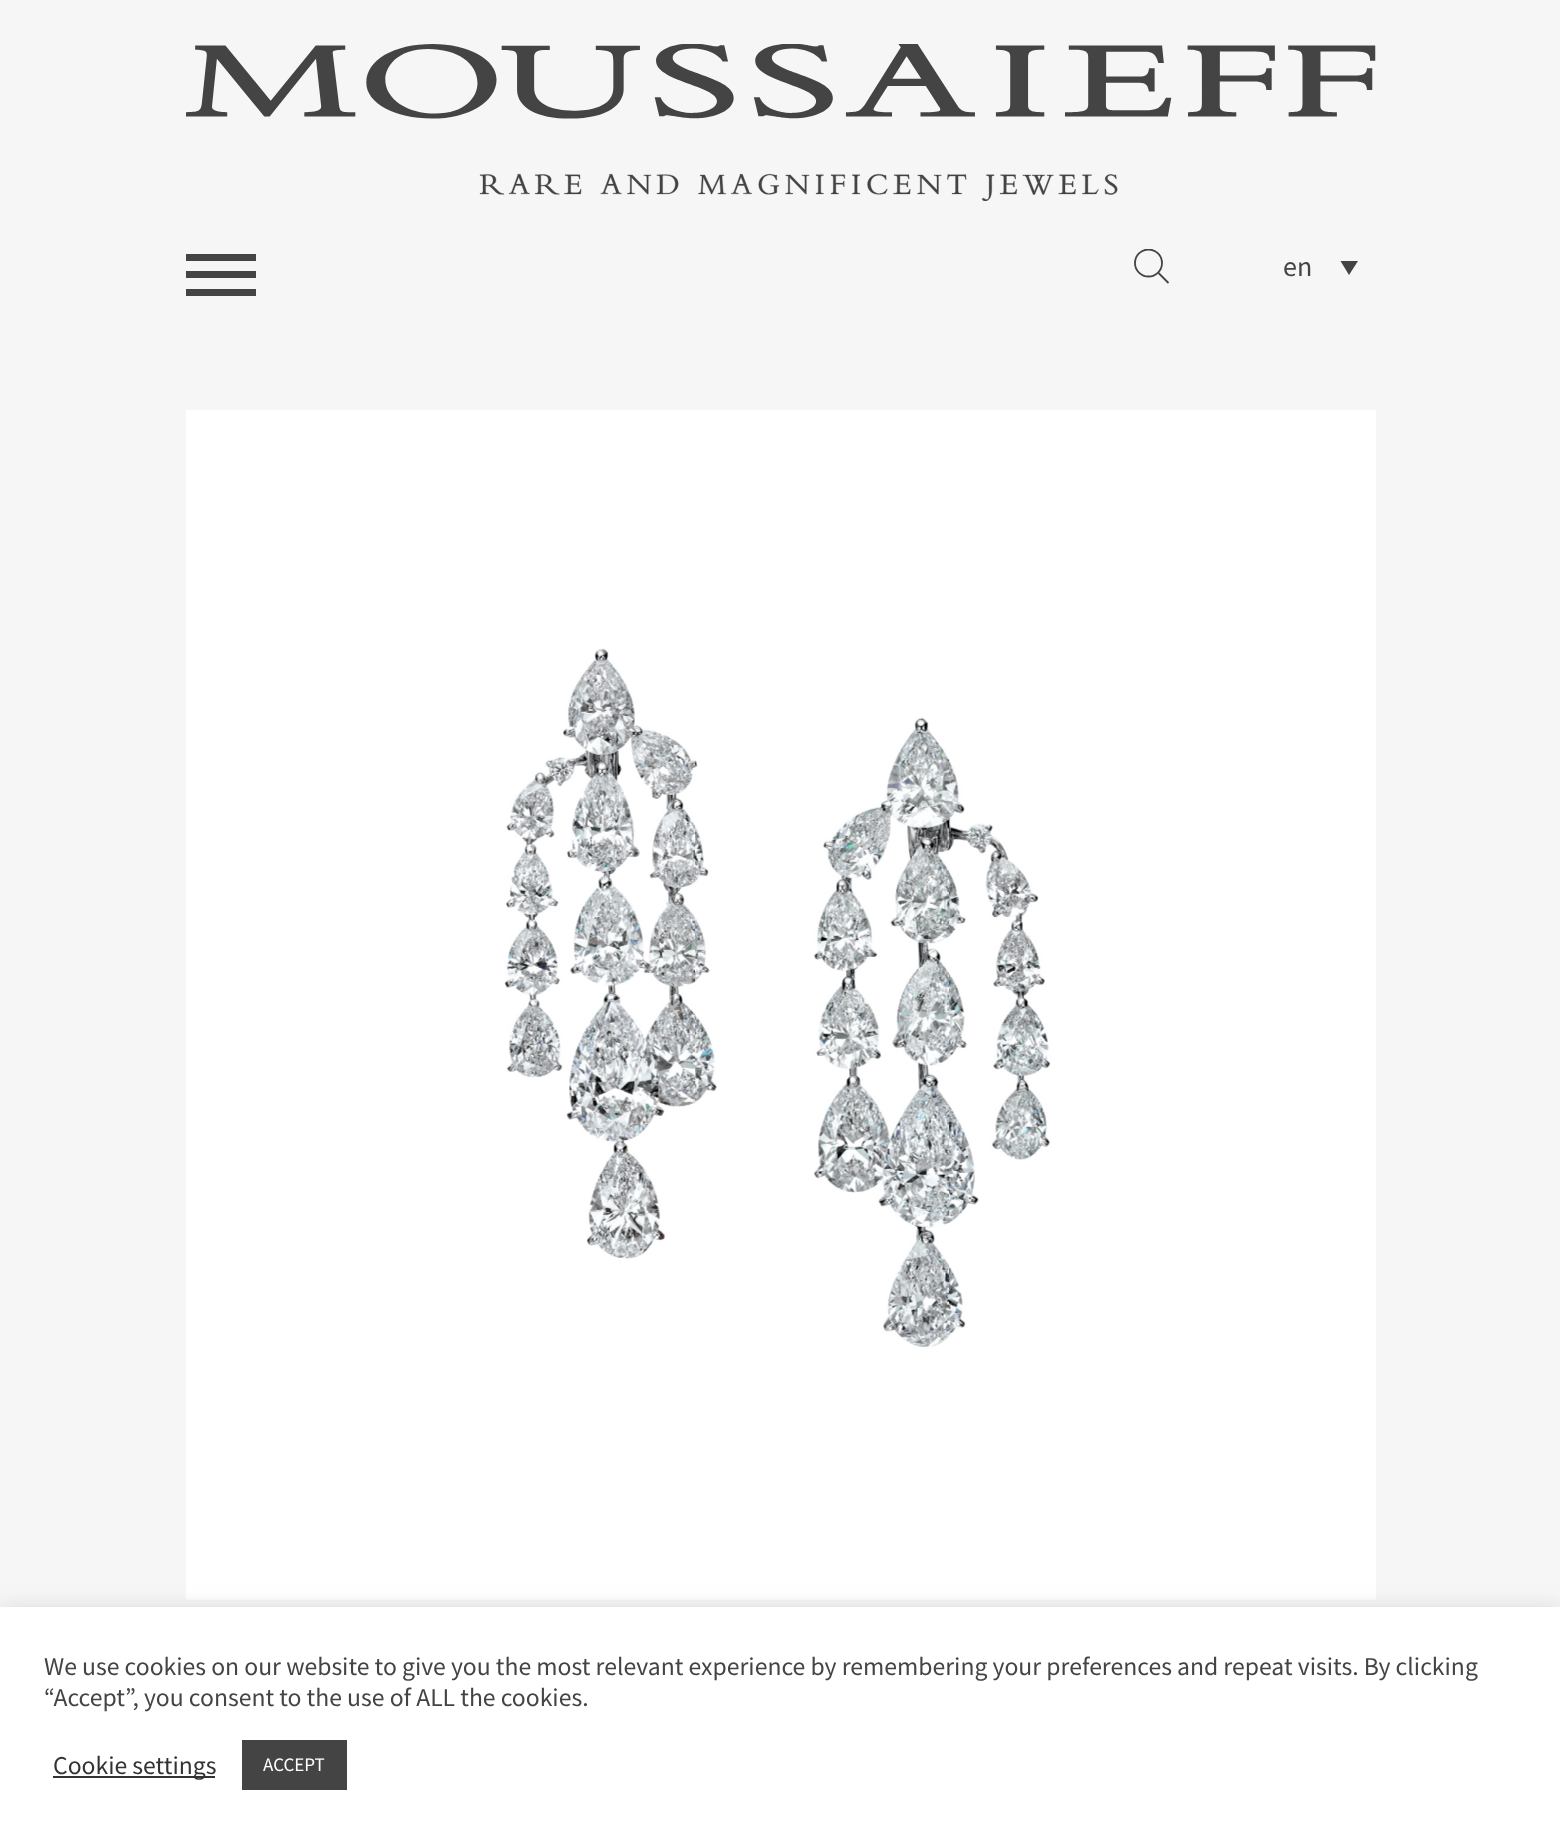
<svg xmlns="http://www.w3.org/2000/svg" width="1560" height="1842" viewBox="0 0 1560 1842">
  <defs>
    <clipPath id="clip1"><rect x="1134" y="249" width="35" height="35"/></clipPath>
  </defs>
  <rect width="100%" height="100%" fill="rgb(246,246,246)"/>
  <image x="186" y="44" width="1190" height="157" href="pic1.png"/>
  <rect x="186" y="271" width="70" height="7" fill="rgb(68,68,68)"/>
  <rect x="186" y="254" width="70" height="7" fill="rgb(68,68,68)"/>
  <rect x="186" y="289" width="70" height="7" fill="rgb(68,68,68)"/>
  <g clip-path="url(#clip1)">
    <circle cx="1148.5" cy="263" r="13.5" fill="none" stroke="rgb(68,68,68)" stroke-width="1.8"/>
  </g>
  <path d="M1158.5 273L1168.5 283" fill="none" stroke="rgb(68,68,68)" stroke-width="1.8"/>
  <text x="1283" y="276" font-family="Source Sans Pro" font-size="28" fill="rgb(68,68,68)">en</text>
  <path d="M1340.5 261H1358L1349 275Z" fill="rgb(68,68,68)"/>
  <image x="186" y="410" width="1190" height="1190" href="pic2.png"/>
  <rect x="0" y="1605" width="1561" height="236" fill="rgba(172,171,171,0.3)" filter="blur(9px)"/>
  <rect x="0" y="1607" width="1560" height="235" fill="rgb(255,255,255)"/>
  <g font-family="Source Sans Pro" font-size="25.67" fill="rgb(68,68,68)">
    <text>
      <tspan x="44" y="1675">We use cookies on our website to give you the most relevant experience by remembering your preferences and repeat visits. By clicking</tspan>
      <tspan x="44" y="1706">“Accept”, you consent to the use of ALL the cookies.</tspan>
    </text>
  </g>
  <rect x="53" y="1776" width="162" height="2" fill="rgb(51,51,51)"/>
  <text x="53" y="1774" font-family="Source Sans Pro" font-size="25.67" fill="rgb(51,51,51)">Cookie settings</text>
  <rect x="242" y="1740" width="105" height="50" fill="rgb(68,68,68)"/>
  <text x="263" y="1771" font-family="Source Sans Pro" font-size="19" fill="rgb(255,255,255)">ACCEPT</text>
</svg>
